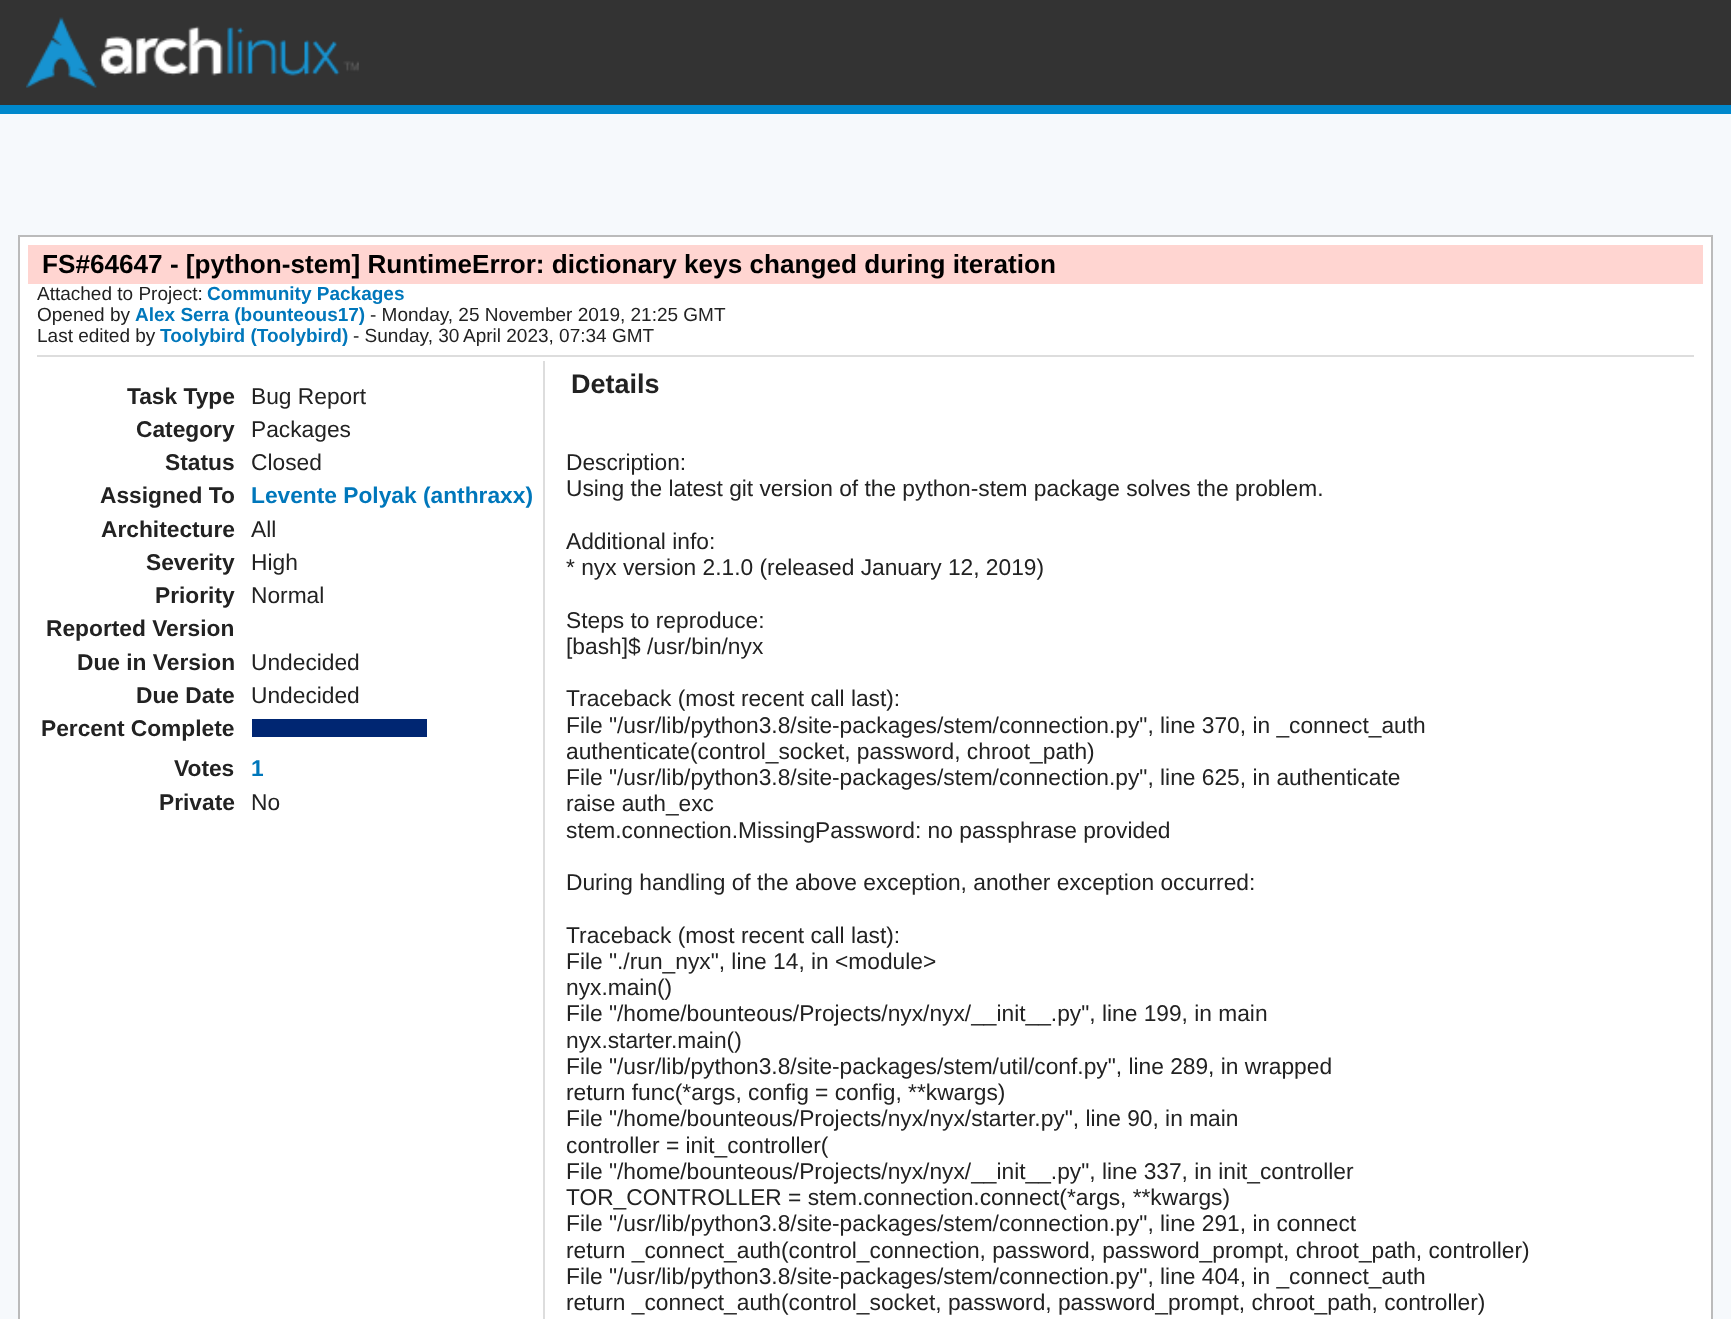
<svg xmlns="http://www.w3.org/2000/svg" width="1731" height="1319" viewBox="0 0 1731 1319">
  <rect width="100%" height="100%" fill="rgb(246,249,252)"/>
  <rect x="0" y="0" width="1731" height="105" fill="rgb(51,51,51)"/>
  <rect x="0" y="105" width="1731" height="9" fill="rgb(0,136,204)"/>
  <image x="26" y="17" width="333" height="71" href="pic1.png"/>
  <rect x="19" y="236" width="1693" height="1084" fill="rgb(255,255,255)" stroke="rgb(187,187,187)" stroke-width="2"/>
  <rect x="28" y="245" width="1675" height="39" fill="rgb(255,213,209)"/>
  <text x="42" y="273" font-family="Liberation Sans" font-size="26.15" font-weight="bold" fill="rgb(0,0,0)">FS#64647 - [python-stem] RuntimeError: dictionary keys changed during iteration</text>
  <rect x="37" y="355" width="1657" height="2" fill="rgb(221,221,221)"/>
  <text x="37" y="300" font-family="Liberation Sans" font-size="19" fill="rgb(34,34,34)">Attached to Project:</text>
  <text x="207" y="300" font-family="Liberation Sans" font-size="19" font-weight="bold" fill="rgb(0,119,187)">Community Packages</text>
  <text x="37" y="321" font-family="Liberation Sans" font-size="19" fill="rgb(34,34,34)">Opened by</text>
  <text x="135" y="321" font-family="Liberation Sans" font-size="19" font-weight="bold" fill="rgb(0,119,187)">Alex Serra (bounteous17)</text>
  <g font-family="Liberation Sans" font-size="19" fill="rgb(34,34,34)">
    <text x="370" y="321">- Monday, 25 November 2019, 21:25 GMT</text>
    <text x="37" y="342">Last edited by</text>
  </g>
  <text x="160" y="342" font-family="Liberation Sans" font-size="19" font-weight="bold" fill="rgb(0,119,187)">Toolybird (Toolybird)</text>
  <g font-family="Liberation Sans" font-size="19" fill="rgb(34,34,34)">
    <text x="353" y="342">- Sunday, 30</text>
    <text x="463" y="342">April 2023, 07:34 GMT</text>
  </g>
  <rect x="543" y="361" width="2" height="958" fill="rgb(221,221,221)"/>
  <text x="127" y="404" font-family="Liberation Sans" font-size="22.75" font-weight="bold" fill="rgb(34,34,34)">Task Type</text>
  <text x="251" y="404" font-family="Liberation Sans" font-size="22.75" fill="rgb(34,34,34)">Bug Report</text>
  <text x="136" y="437" font-family="Liberation Sans" font-size="22.75" font-weight="bold" fill="rgb(34,34,34)">Category</text>
  <text x="251" y="437" font-family="Liberation Sans" font-size="22.75" fill="rgb(34,34,34)">Packages</text>
  <text x="165" y="470" font-family="Liberation Sans" font-size="22.75" font-weight="bold" fill="rgb(34,34,34)">Status</text>
  <text x="251" y="470" font-family="Liberation Sans" font-size="22.75" fill="rgb(34,34,34)">Closed</text>
  <text x="100" y="503" font-family="Liberation Sans" font-size="22.75" font-weight="bold" fill="rgb(34,34,34)">Assigned To</text>
  <text x="251" y="503" font-family="Liberation Sans" font-size="22.75" font-weight="bold" fill="rgb(0,119,187)">Levente Polyak (anthraxx)</text>
  <text x="101" y="537" font-family="Liberation Sans" font-size="22.75" font-weight="bold" fill="rgb(34,34,34)">Architecture</text>
  <text x="251" y="537" font-family="Liberation Sans" font-size="22.75" fill="rgb(34,34,34)">All</text>
  <text x="146" y="570" font-family="Liberation Sans" font-size="22.75" font-weight="bold" fill="rgb(34,34,34)">Severity</text>
  <text x="251" y="570" font-family="Liberation Sans" font-size="22.75" fill="rgb(34,34,34)">High</text>
  <text x="155" y="603" font-family="Liberation Sans" font-size="22.75" font-weight="bold" fill="rgb(34,34,34)">Priority</text>
  <text x="251" y="603" font-family="Liberation Sans" font-size="22.75" fill="rgb(34,34,34)">Normal</text>
  <g font-family="Liberation Sans" font-size="22.75" font-weight="bold" fill="rgb(34,34,34)">
    <text x="46" y="636">Reported Version</text>
    <text x="77" y="670">Due in Version</text>
  </g>
  <text x="251" y="670" font-family="Liberation Sans" font-size="22.75" fill="rgb(34,34,34)">Undecided</text>
  <text x="136" y="703" font-family="Liberation Sans" font-size="22.75" font-weight="bold" fill="rgb(34,34,34)">Due Date</text>
  <text x="251" y="703" font-family="Liberation Sans" font-size="22.75" fill="rgb(34,34,34)">Undecided</text>
  <text x="41" y="736" font-family="Liberation Sans" font-size="22.75" font-weight="bold" fill="rgb(34,34,34)">Percent Complete</text>
  <rect x="252" y="719" width="175" height="18" fill="rgb(0,38,114)"/>
  <text x="174" y="776" font-family="Liberation Sans" font-size="22.75" font-weight="bold" fill="rgb(34,34,34)">Votes</text>
  <text x="251" y="776" font-family="Liberation Sans" font-size="22.75" font-weight="bold" fill="rgb(0,119,187)">1</text>
  <text x="159" y="810" font-family="Liberation Sans" font-size="22.75" font-weight="bold" fill="rgb(34,34,34)">Private</text>
  <text x="251" y="810" font-family="Liberation Sans" font-size="22.75" fill="rgb(34,34,34)">No</text>
  <text x="571" y="393" font-family="Liberation Sans" font-size="27" font-weight="bold" fill="rgb(34,34,34)">Details</text>
  <g font-family="Liberation Sans" font-size="22.75" fill="rgb(34,34,34)">
    <text>
      <tspan x="566" y="470">Description:</tspan>
      <tspan x="566" y="496">Using the latest git version of the python-stem package solves the problem.</tspan>
    </text>
    <text>
      <tspan x="566" y="549">Additional info:</tspan>
      <tspan x="566" y="575">* nyx version 2.1.0 (released January 12, 2019)</tspan>
    </text>
    <text>
      <tspan x="566" y="628">Steps to reproduce:</tspan>
      <tspan x="566" y="654">[bash]$ /usr/bin/nyx</tspan>
    </text>
    <text>
      <tspan x="566" y="706">Traceback (most recent call last):</tspan>
      <tspan x="566" y="733">File "/usr/lib/python3.8/site-packages/stem/connection.py", line 370, in _connect_auth</tspan>
      <tspan x="566" y="759">authenticate(control_socket, password, chroot_path)</tspan>
      <tspan x="566" y="785">File "/usr/lib/python3.8/site-packages/stem/connection.py", line 625, in authenticate</tspan>
      <tspan x="566" y="811">raise auth_exc</tspan>
      <tspan x="566" y="838">stem.connection.MissingPassword: no passphrase provided</tspan>
    </text>
    <text x="566" y="890">During handling of the above exception, another exception occurred:</text>
    <text>
      <tspan x="566" y="943">Traceback (most recent call last):</tspan>
      <tspan x="566" y="969">File "./run_nyx", line 14, in &lt;module&gt;</tspan>
      <tspan x="566" y="995">nyx.main()</tspan>
      <tspan x="566" y="1021">File "/home/bounteous/Projects/nyx/nyx/__init__.py", line 199, in main</tspan>
      <tspan x="566" y="1048">nyx.starter.main()</tspan>
      <tspan x="566" y="1074">File "/usr/lib/python3.8/site-packages/stem/util/conf.py", line 289, in wrapped</tspan>
      <tspan x="566" y="1100">return func(*args, config = config, **kwargs)</tspan>
      <tspan x="566" y="1126">File "/home/bounteous/Projects/nyx/nyx/starter.py", line 90, in main</tspan>
      <tspan x="566" y="1153">controller = init_controller(</tspan>
      <tspan x="566" y="1179">File "/home/bounteous/Projects/nyx/nyx/__init__.py", line 337, in init_controller</tspan>
      <tspan x="566" y="1205">TOR_CONTROLLER = stem.connection.connect(*args, **kwargs)</tspan>
      <tspan x="566" y="1231">File "/usr/lib/python3.8/site-packages/stem/connection.py", line 291, in connect</tspan>
      <tspan x="566" y="1258">return _connect_auth(control_connection, password, password_prompt, chroot_path, controller)</tspan>
      <tspan x="566" y="1284">File "/usr/lib/python3.8/site-packages/stem/connection.py", line 404, in _connect_auth</tspan>
      <tspan x="566" y="1310">return _connect_auth(control_socket, password, password_prompt, chroot_path, controller)</tspan>
    </text>
  </g>
</svg>
